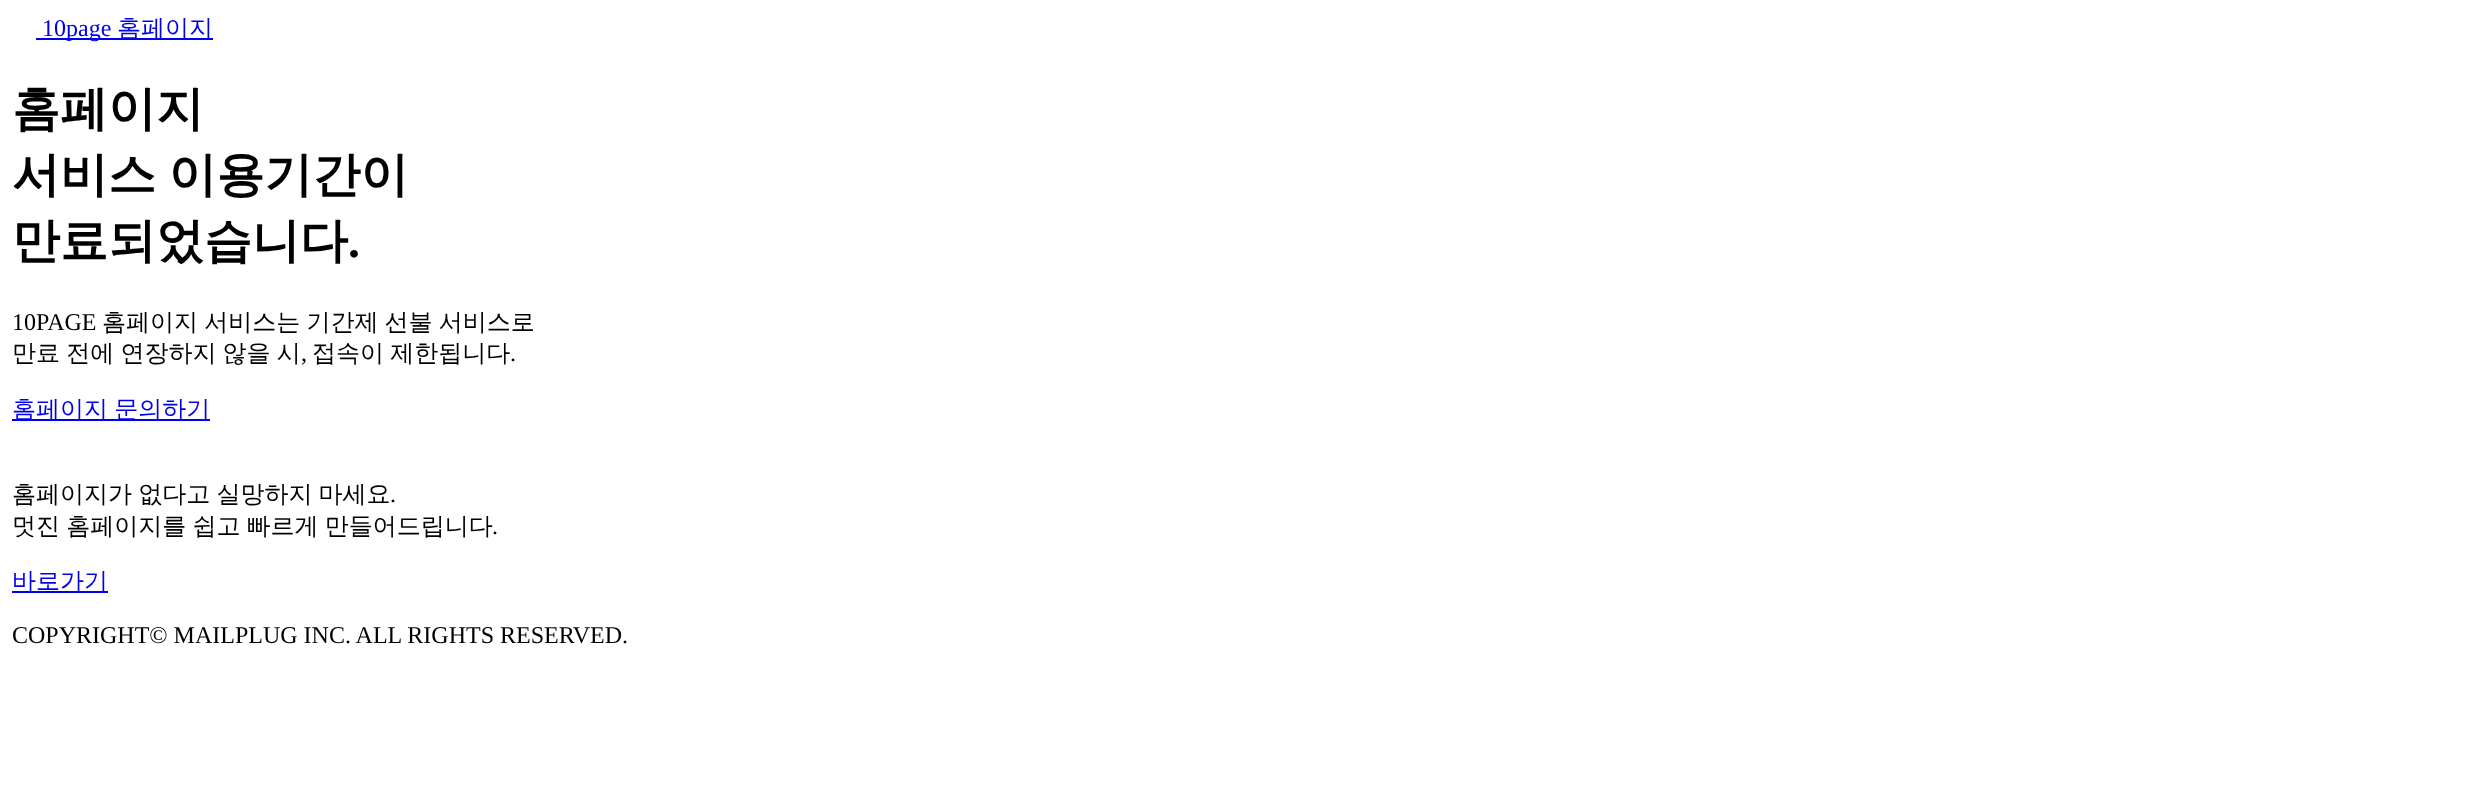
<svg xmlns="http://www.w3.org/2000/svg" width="2470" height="802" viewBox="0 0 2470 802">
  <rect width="100%" height="100%" fill="rgb(255,255,255)"/>
  <rect x="36" y="38" width="177" height="2" fill="rgb(0,0,238)"/>
  <text x="42" y="36" font-family="Liberation Serif" font-size="24" fill="rgb(0,0,238)">10page</text>
  <text x="117" y="36" font-family="WenQuanYi Zen Hei" font-size="24" font-weight="500" fill="rgb(0,0,238)">홈페이지</text>
  <g font-family="WenQuanYi Zen Hei" font-size="48" font-weight="bold" fill="rgb(0,0,0)">
    <text>
      <tspan x="12" y="125">홈페이지</tspan>
      <tspan x="12" y="191" word-spacing="-2">서비스 이용기간이</tspan>
      <tspan x="12" y="257">만료되었습니다</tspan>
    </text>
  </g>
  <text x="348" y="257" font-family="Liberation Serif" font-size="48" font-weight="bold" fill="rgb(0,0,0)">.</text>
  <text x="12" y="330" font-family="Liberation Serif" font-size="24" fill="rgb(0,0,0)">10PAGE</text>
  <g font-family="WenQuanYi Zen Hei" font-size="24" font-weight="500" fill="rgb(0,0,0)">
    <text x="102" y="330" word-spacing="-1">홈페이지 서비스는 기간제 선불 서비스로</text>
    <text x="12" y="361" word-spacing="-1">만료 전에 연장하지 않을 시</text>
  </g>
  <text x="301" y="361" font-family="Liberation Serif" font-size="24" fill="rgb(0,0,0)">,</text>
  <text x="312" y="361" word-spacing="-1" font-family="WenQuanYi Zen Hei" font-size="24" font-weight="500" fill="rgb(0,0,0)">접속이 제한됩니다</text>
  <text x="510" y="361" font-family="Liberation Serif" font-size="24" fill="rgb(0,0,0)">.</text>
  <rect x="12" y="419" width="198" height="2" fill="rgb(0,0,238)"/>
  <text x="12" y="417" word-spacing="-1" font-family="WenQuanYi Zen Hei" font-size="24" font-weight="500" fill="rgb(0,0,238)">홈페이지 문의하기</text>
  <text x="12" y="502" word-spacing="-1" font-family="WenQuanYi Zen Hei" font-size="24" font-weight="500" fill="rgb(0,0,0)">홈페이지가 없다고 실망하지 마세요</text>
  <text x="390" y="502" font-family="Liberation Serif" font-size="24" fill="rgb(0,0,0)">.</text>
  <text x="12" y="534" word-spacing="-1" font-family="WenQuanYi Zen Hei" font-size="24" font-weight="500" fill="rgb(0,0,0)">멋진 홈페이지를 쉽고 빠르게 만들어드립니다</text>
  <text x="492" y="534" font-family="Liberation Serif" font-size="24" fill="rgb(0,0,0)">.</text>
  <rect x="12" y="591" width="96" height="2" fill="rgb(0,0,238)"/>
  <text x="12" y="589" font-family="WenQuanYi Zen Hei" font-size="24" font-weight="500" fill="rgb(0,0,238)">바로가기</text>
  <text x="12" y="643" font-family="Liberation Serif" font-size="24" fill="rgb(0,0,0)">COPYRIGHT© MAILPLUG INC. ALL RIGHTS RESERVED.</text>
</svg>
